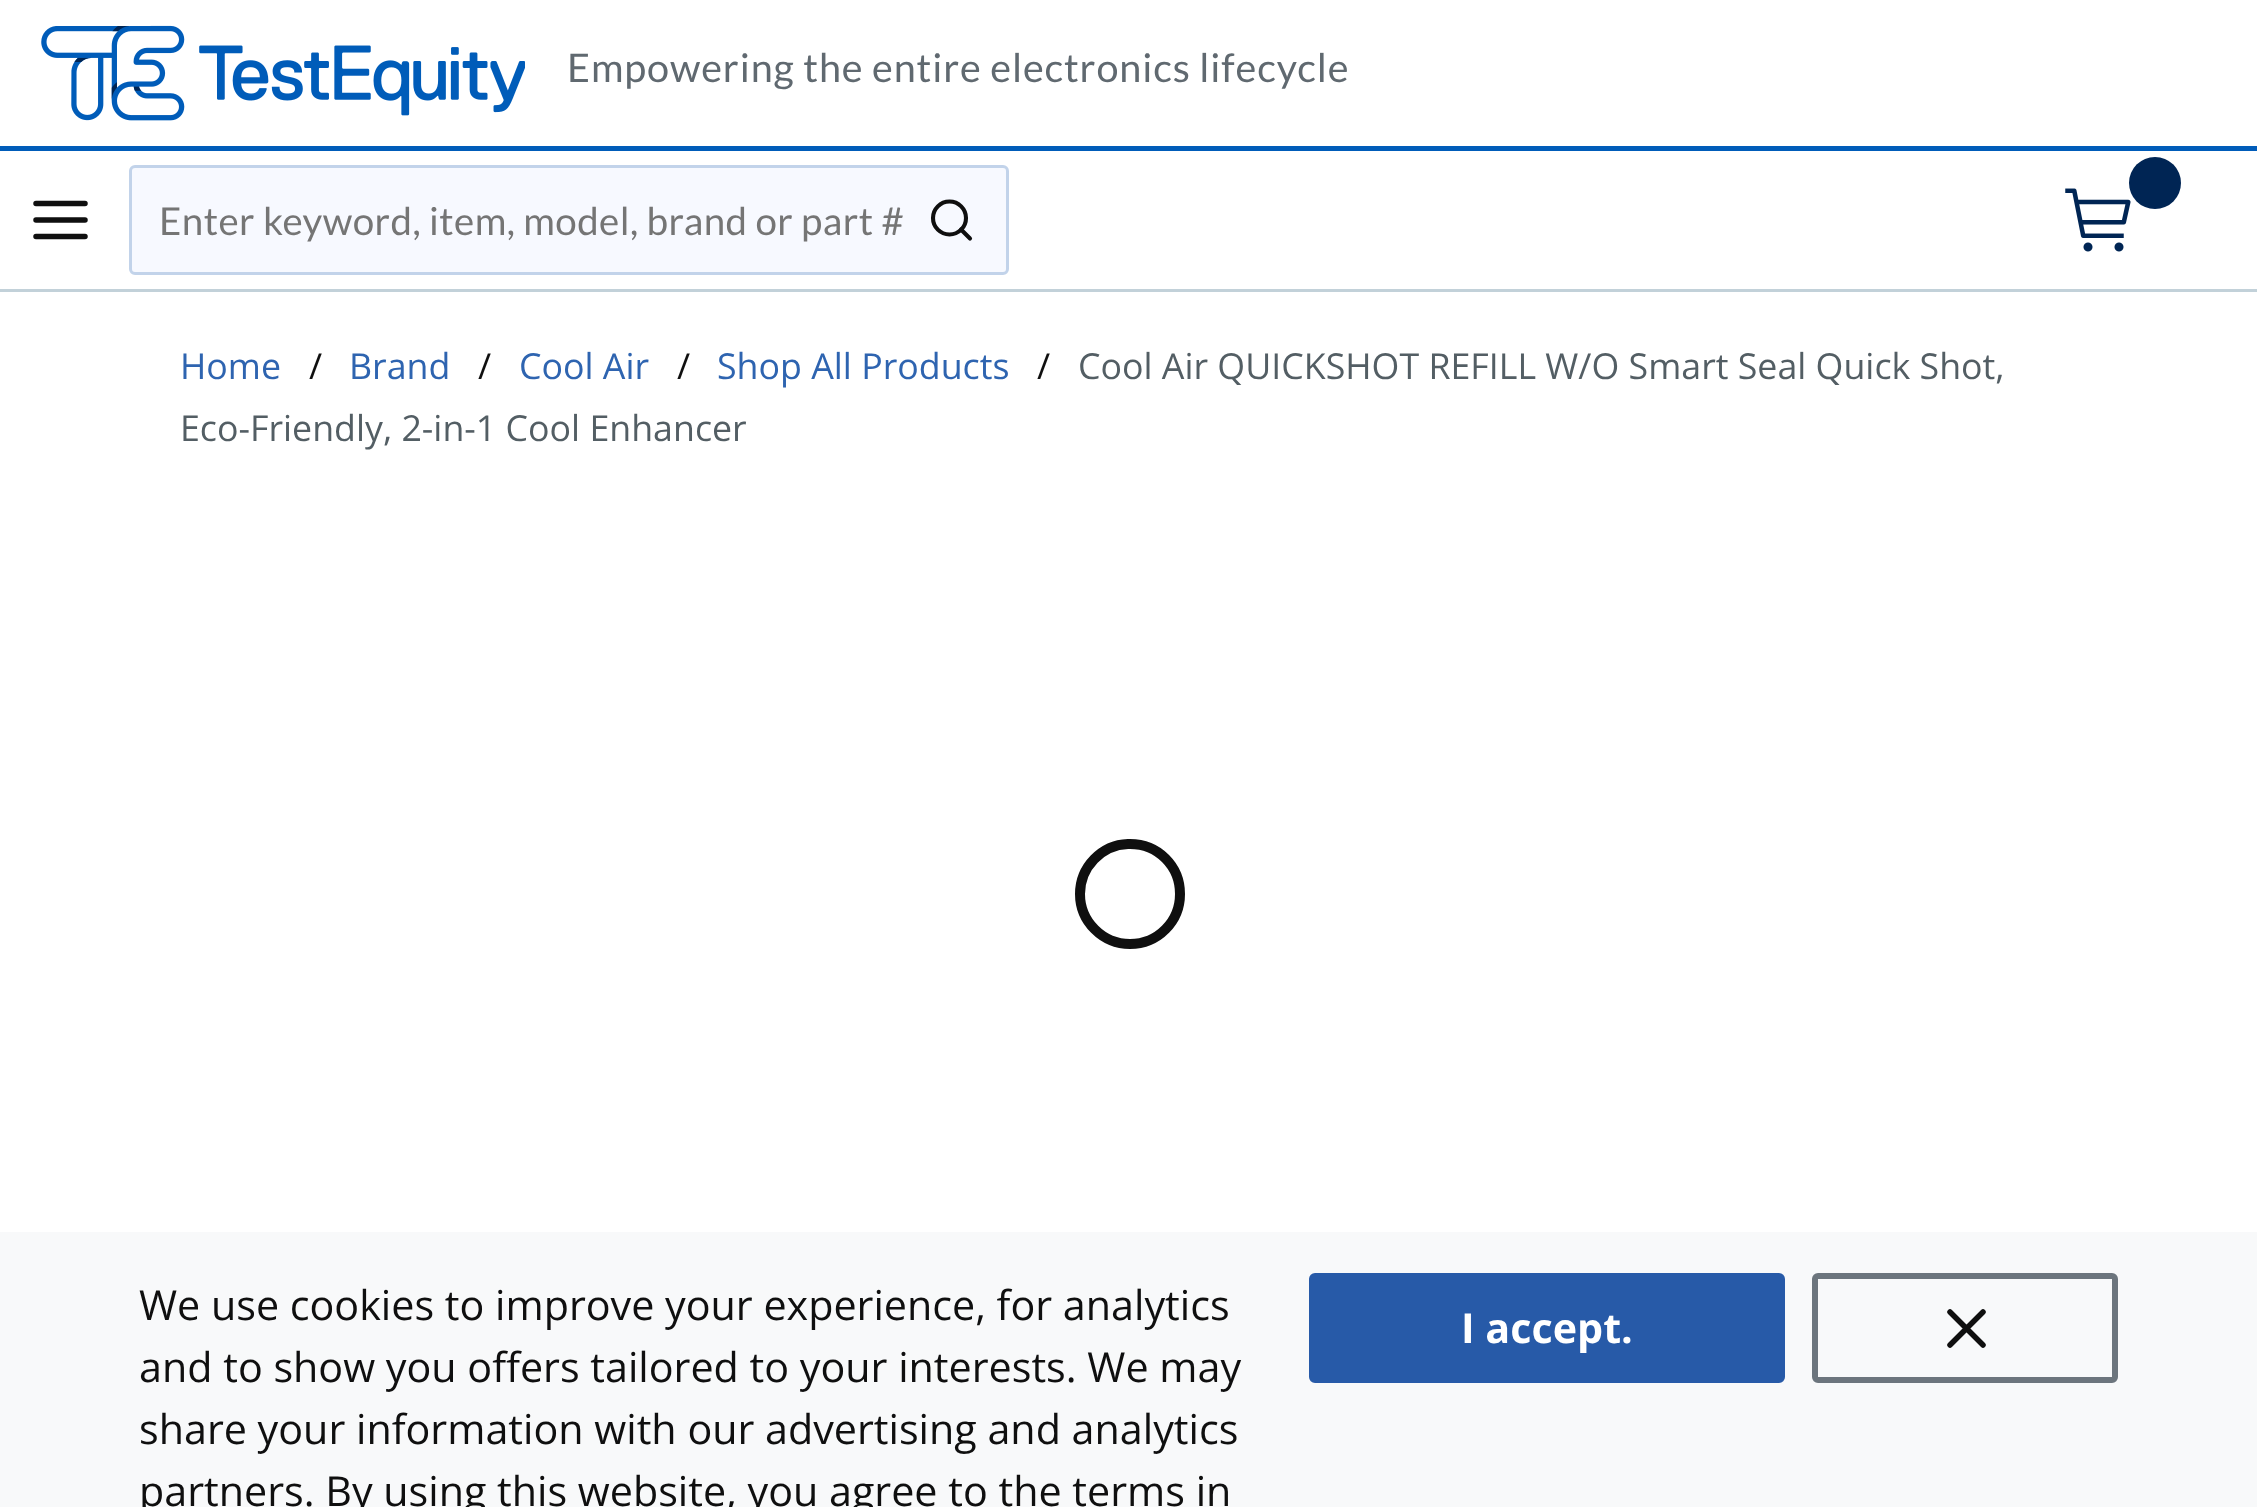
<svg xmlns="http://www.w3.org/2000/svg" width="2257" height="1507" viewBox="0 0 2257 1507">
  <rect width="100%" height="100%" fill="rgb(255,255,255)"/>
  <rect x="0" y="146" width="2257" height="5" fill="rgb(0,92,185)"/>
  <image x="41" y="25" width="484" height="96" href="pic1.png"/>
  <text x="567" y="82" font-family="Lato" font-size="39.6" letter-spacing="0.9" fill="rgb(96,105,112)">Empowering the entire electronics lifecycle</text>
  <rect x="0" y="289" width="2257" height="3" fill="rgb(194,209,217)"/>
  <path d="M36 220H85M36 203.5H85M36 236.5H85" fill="none" stroke="rgb(15,15,15)" stroke-width="5.5" stroke-linecap="round" stroke-linejoin="round"/>
  <rect x="130.5" y="166.5" width="877" height="107" rx="4.5" fill="rgb(247,249,255)" stroke="rgb(194,211,234)" stroke-width="3"/>
  <text x="159" y="235" font-family="Lato" font-size="38.5" letter-spacing="0.45" fill="rgb(117,117,117)">Enter keyword, item, model, brand or part #</text>
  <circle cx="949.5" cy="218" r="16.5" fill="none" stroke="rgb(15,15,15)" stroke-width="4.1"/>
  <path d="M970 238.5L961 229.5" fill="none" stroke="rgb(15,15,15)" stroke-width="4.1" stroke-linecap="round" stroke-linejoin="round"/>
  <image x="2065" y="188" width="66" height="64" href="pic2.png"/>
  <circle cx="2155" cy="183" r="26" fill="rgb(0,37,84)"/>
  <text x="180" y="379" font-family="Open Sans" font-size="35.75" fill="rgb(46,100,176)">Home</text>
  <text x="309" y="379" font-family="Open Sans" font-size="35.75" fill="rgb(15,15,15)">/</text>
  <text x="349" y="379" font-family="Open Sans" font-size="35.75" fill="rgb(46,100,176)">Brand</text>
  <text x="478" y="379" font-family="Open Sans" font-size="35.75" fill="rgb(15,15,15)">/</text>
  <text x="519" y="379" font-family="Open Sans" font-size="35.75" fill="rgb(46,100,176)">Cool Air</text>
  <text x="677" y="379" font-family="Open Sans" font-size="35.75" fill="rgb(15,15,15)">/</text>
  <text x="717" y="379" font-family="Open Sans" font-size="35.75" fill="rgb(46,100,176)">Shop All Products</text>
  <text x="1037" y="379" font-family="Open Sans" font-size="35.75" fill="rgb(15,15,15)">/</text>
  <g font-family="Open Sans" font-size="35.75" fill="rgb(83,94,100)">
    <text x="1078" y="379">Cool Air QUICKSHOT REFILL W/O Smart Seal Quick Shot,</text>
    <text x="180" y="441">Eco-Friendly, 2-in-1 Cool Enhancer</text>
  </g>
  <path d="M1130 844C1158 844 1180 866 1180 894C1180 921.5 1158 944 1130 944C1102.5 944 1080 921.5 1080 894C1080 867 1101.5 845 1128 844" fill="none" stroke="rgb(15,15,15)" stroke-width="10" stroke-linecap="round"/>
  <rect x="0" y="1232" width="2257" height="275" fill="rgb(248,249,250)"/>
  <g font-family="Open Sans" font-size="41.25" fill="rgb(15,15,15)">
    <text>
      <tspan x="139" y="1320">We use cookies to improve your experience, for analytics</tspan>
      <tspan x="139" y="1382">and to show you offers tailored to your interests. We may</tspan>
      <tspan x="139" y="1444">share your information with our advertising and analytics</tspan>
      <tspan x="139" y="1506">partners. By using this website, you agree to the terms in</tspan>
    </text>
  </g>
  <rect x="1312" y="1276" width="470" height="104" rx="3" fill="rgb(39,90,168)" stroke="rgb(39,90,168)" stroke-width="6"/>
  <text x="1461" y="1343" font-family="Open Sans" font-size="41.25" font-weight="bold" fill="rgb(255,255,255)">I accept.</text>
  <rect x="1815" y="1276" width="300" height="104" rx="3" fill="none" stroke="rgb(108,117,125)" stroke-width="6"/>
  <path d="M1983 1312L1950 1345M1950 1312L1983 1345" fill="none" stroke="rgb(15,15,15)" stroke-width="5.5" stroke-linecap="round" stroke-linejoin="round"/>
</svg>
